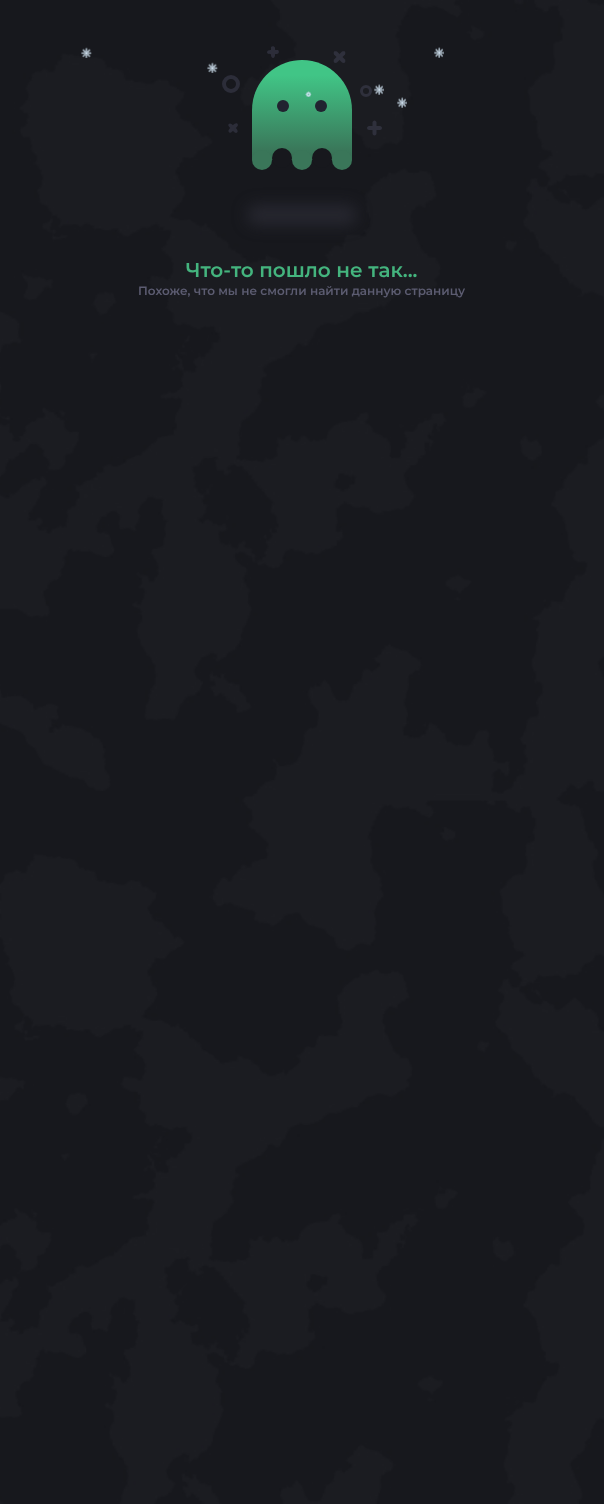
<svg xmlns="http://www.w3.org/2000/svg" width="604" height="1504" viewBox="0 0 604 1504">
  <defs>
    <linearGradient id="g1" gradientUnits="userSpaceOnUse" x1="302" y1="160" x2="302" y2="60"><stop offset="0" stop-color="rgb(57,109,84)"/><stop offset="0.85" stop-color="rgb(65,197,134)"/></linearGradient>
  </defs>
  <rect width="100%" height="100%" fill="rgb(255,255,255)"/>
  <image x="0" y="0" width="604" height="1504" href="pic7.png"/>
  <image x="81" y="47" width="11" height="11" href="pic1.png"/>
  <image x="434" y="47" width="10" height="11" href="pic2.png"/>
  <image x="207" y="62" width="11" height="11" href="pic3.png"/>
  <path d="M337 51.5L345 59.5C345.5 60.5 345.5 61.5 345 62.5C344 63 343 63 342 62.5L334 54.5C333.5 53.5 333.5 52.5 334 51.5C335 51 336 51 337 51.5Z" fill="rgb(47,48,60)"/>
  <path d="M334 59.5L342 51.5C343 51 344 51 345 51.5C345.5 52.5 345.5 53.5 345 54.5L337 62.5C336 63 335 63 334 62.5C333.5 61.5 333.5 60.5 334 59.5Z" fill="rgb(47,48,60)"/>
  <path d="M302 60C329.5 60 352 82.5 352 110V160H252V110C252 82.5 274.5 60 302 60Z" fill="url(#g1)"/>
  <image x="305" y="91" width="7" height="6" href="pic4.png"/>
  <image x="374" y="84" width="10" height="11" href="pic5.png"/>
  <image x="397" y="97" width="10" height="11" href="pic6.png"/>
  <path d="M275 48C275 49 276.5 60.5 272 57.5C270.5 56.5 271 52.5 271 50.5V47C272 45.5 275 46 275 48Z" fill="rgb(44,45,57)"/>
  <path d="M277 54C276 54 264.5 55.5 267.5 51C268.5 49.5 272.5 50 274.5 50H278C279.5 51 279 54 277 54Z" fill="rgb(44,45,57)"/>
  <circle cx="231" cy="84" r="7" fill="none" stroke="rgb(44,45,57)" stroke-width="4"/>
  <circle cx="283" cy="106" r="6" fill="rgb(33,35,48)"/>
  <circle cx="321" cy="106" r="6" fill="rgb(33,35,48)"/>
  <circle cx="262" cy="160" r="10" fill="rgb(58,118,89)"/>
  <circle cx="282" cy="158" r="10" fill="rgb(23,24,29)"/>
  <circle cx="302" cy="160" r="10" fill="rgb(58,118,89)"/>
  <circle cx="322" cy="158" r="10" fill="rgb(23,24,29)"/>
  <circle cx="342" cy="160" r="10" fill="rgb(58,118,89)"/>
  <circle cx="366" cy="91" r="4.5" fill="none" stroke="rgb(47,48,60)" stroke-width="3"/>
  <path d="M231.5 124C232.5 124.5 241.5 132 236 133C234.5 133 232 129.5 230.5 128.5L228.5 126C227.5 124 230 122.5 231.5 124Z" fill="rgb(44,45,57)"/>
  <path d="M229 129.5C229.5 128.5 237 119.5 238 125C238 126.5 234.5 129 233.5 130.5L231 132.5C229 133.5 227.5 131 229 129.5Z" fill="rgb(44,45,57)"/>
  <path d="M376.5 122.5V133.5C376.5 134.5 375.5 135.5 374.5 135.5C373.5 135.5 372.5 134.5 372.5 133.5V122.5C372.5 121.5 373.5 120.5 374.5 120.5C375.5 120.5 376.5 121.5 376.5 122.5Z" fill="rgb(47,48,60)"/>
  <path d="M380 130H369C368 130 367 129 367 128C367 127 368 126 369 126H380C381 126 382 127 382 128C382 129 381 130 380 130Z" fill="rgb(47,48,60)"/>
  <rect x="247" y="205" width="110" height="20" rx="10" fill="rgba(47,47,58,0.65)" filter="blur(7.5px)"/>
  <text x="186" y="277" font-family="Montserrat" font-size="20" font-weight="600" fill="rgb(68,180,126)">Что-то пошло не так...</text>
  <text x="138" y="295" font-family="Montserrat" font-size="12" font-weight="600" fill="rgb(92,92,113)">Похоже, что мы не смогли найти данную страницу</text>
</svg>
